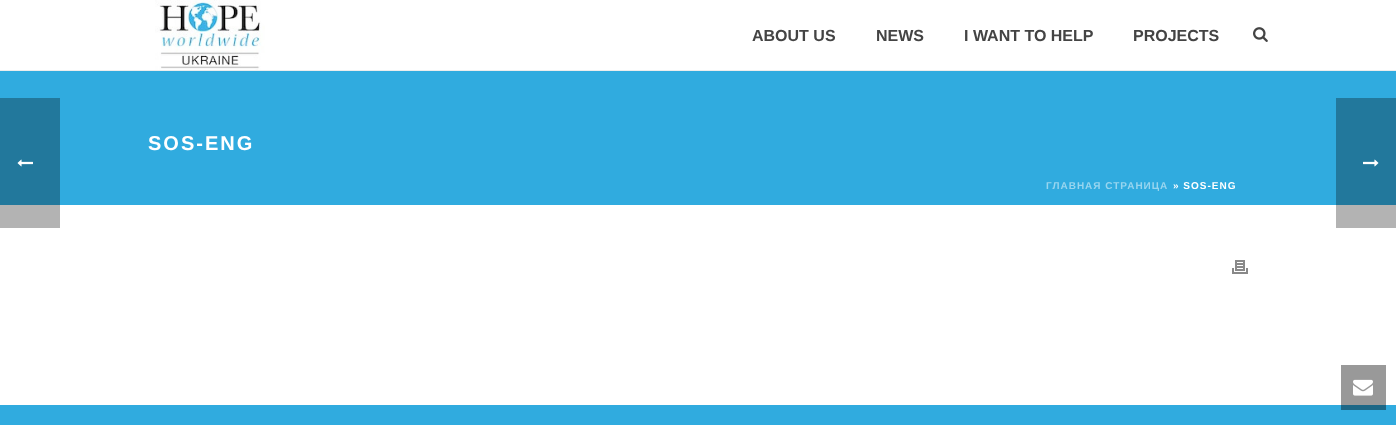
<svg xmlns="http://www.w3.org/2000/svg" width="1396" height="425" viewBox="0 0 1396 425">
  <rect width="100%" height="100%" fill="rgb(255,255,255)"/>
  <rect x="1341" y="365" width="45" height="40" fill="rgb(153,153,153)"/>
  <rect x="1336" y="205" width="60" height="23" fill="rgb(179,179,179)"/>
  <rect x="0" y="205" width="60" height="23" fill="rgb(179,179,179)"/>
  <rect x="0" y="71" width="1396" height="134" fill="rgb(48,171,223)"/>
  <rect x="0" y="98" width="60" height="107" fill="rgb(34,120,156)"/>
  <image x="17" y="159" width="16" height="8" href="pic1.png"/>
  <rect x="1336" y="98" width="60" height="107" fill="rgb(34,120,156)"/>
  <rect x="0" y="70" width="1396" height="1" fill="rgb(237,237,237)"/>
  <image x="155" y="0" width="110" height="70" href="pic2.png"/>
  <g font-family="Liberation Sans" font-size="16" font-weight="bold" fill="rgb(68,68,68)">
    <text x="752" y="41">ABOUT US</text>
    <text x="876" y="41">NEWS</text>
    <text x="964" y="41">I WANT TO HELP</text>
    <text x="1133" y="41">PROJECTS</text>
  </g>
  <image x="1253" y="27" width="15" height="15" href="pic3.png"/>
  <text x="148" y="150" font-family="Liberation Sans" font-size="20" font-weight="bold" letter-spacing="2" fill="rgb(255,255,255)">SOS-ENG</text>
  <text x="1046" y="189" font-family="Liberation Sans" font-size="10" font-weight="bold" letter-spacing="1" fill="rgb(152,213,239)">ГЛАВНАЯ СТРАНИЦА</text>
  <text x="1173" y="189" font-family="Liberation Sans" font-size="10" font-weight="bold" letter-spacing="1" fill="rgb(255,255,255)">» SOS-ENG</text>
  <image x="1232" y="260" width="16" height="14" href="pic4.png"/>
  <rect x="0" y="405" width="1396" height="20" fill="rgb(48,171,223)"/>
  <rect x="1341" y="405" width="45" height="5" fill="rgb(29,103,134)"/>
  <image x="1363" y="159" width="16" height="8" href="pic5.png"/>
  <image x="1353" y="379" width="20" height="17" href="pic6.png"/>
</svg>
